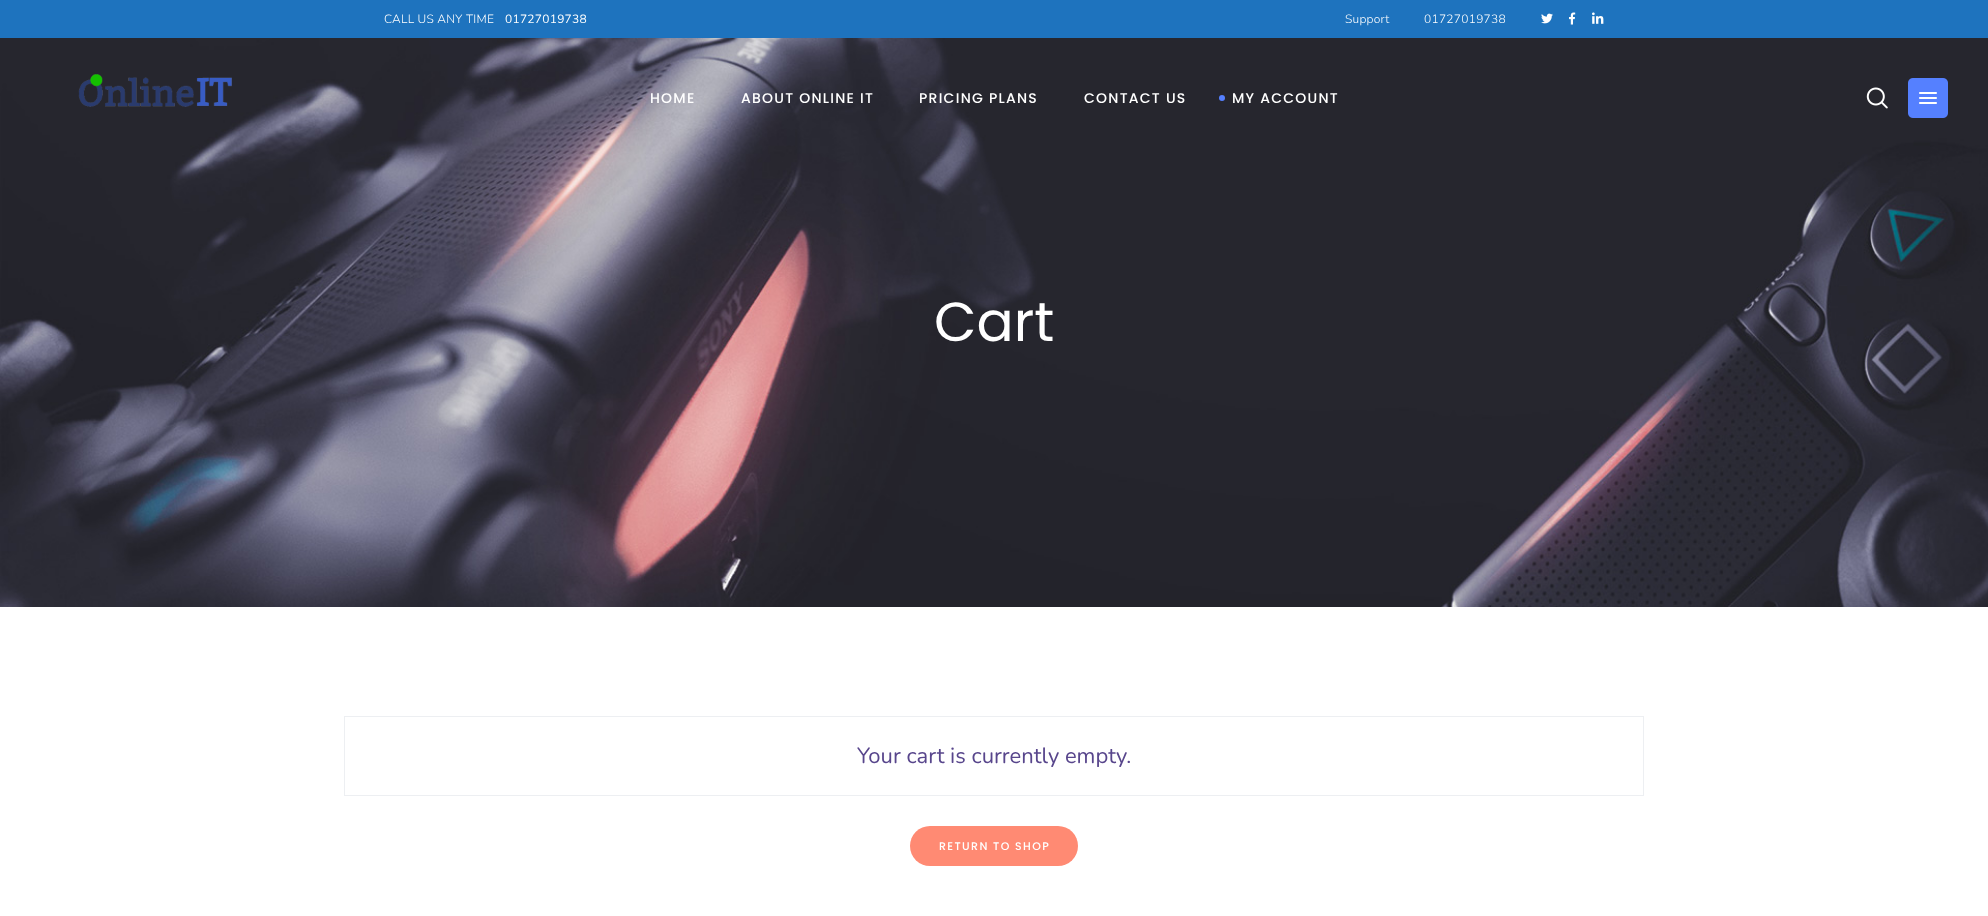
<svg xmlns="http://www.w3.org/2000/svg" width="1988" height="916" viewBox="0 0 1988 916">
  <rect width="100%" height="100%" fill="rgb(255,255,255)"/>
  <rect x="0" y="0" width="1988" height="38" fill="rgb(30,115,190)"/>
  <text x="384" y="23" font-family="Nunito" font-size="12" font-weight="300" letter-spacing="0.25" fill="rgb(255,255,255)">CALL US ANY TIME</text>
  <text x="505" y="23" font-family="Nunito" font-size="12" letter-spacing="0.25" fill="rgb(255,255,255)">01727019738</text>
  <g font-family="Nunito" font-size="12" font-weight="300" letter-spacing="0.25" fill="rgb(255,255,255)">
    <text x="1345" y="23">Support</text>
    <text x="1424" y="23">01727019738</text>
  </g>
  <image x="1541" y="13" width="12" height="11" href="pic1.png"/>
  <image x="1569" y="12" width="7" height="13" href="pic2.png"/>
  <image x="1592" y="12" width="12" height="12" href="pic3.png"/>
  <image x="0" y="38" width="1988" height="569" href="pic7.png"/>
  <image x="78" y="74" width="154" height="33" href="pic4.png"/>
  <g font-family="Poppins" font-size="14" font-weight="500" letter-spacing="1.25" fill="rgb(255,255,255)">
    <text x="650" y="103">HOME</text>
    <text x="741" y="103">ABOUT ONLINE IT</text>
    <text x="919" y="103">PRICING PLANS</text>
    <text x="1084" y="103">CONTACT US</text>
  </g>
  <circle cx="1222" cy="98" r="3" fill="rgb(85,128,255)"/>
  <text x="1232" y="103" font-family="Poppins" font-size="14" font-weight="500" letter-spacing="1.25" fill="rgb(255,255,255)">MY ACCOUNT</text>
  <image x="1866" y="87" width="22" height="22" href="pic5.png"/>
  <image x="1908" y="78" width="40" height="40" href="pic6.png"/>
  <text x="934" y="341" font-family="Poppins" font-size="55" fill="rgb(255,255,255)">Cart</text>
  <rect x="344.5" y="716.5" width="1299" height="79" fill="none" stroke="rgb(237,239,242)"/>
  <text x="857" y="763" font-family="Nunito" font-size="22" fill="rgb(88,70,140)">Your cart is currently empty.</text>
  <rect x="910" y="826" width="168" height="40" rx="20" fill="rgb(255,138,115)"/>
  <text x="939" y="850" font-family="Poppins" font-size="11" font-weight="500" letter-spacing="1.4" fill="rgb(255,255,255)">RETURN TO SHOP</text>
</svg>
